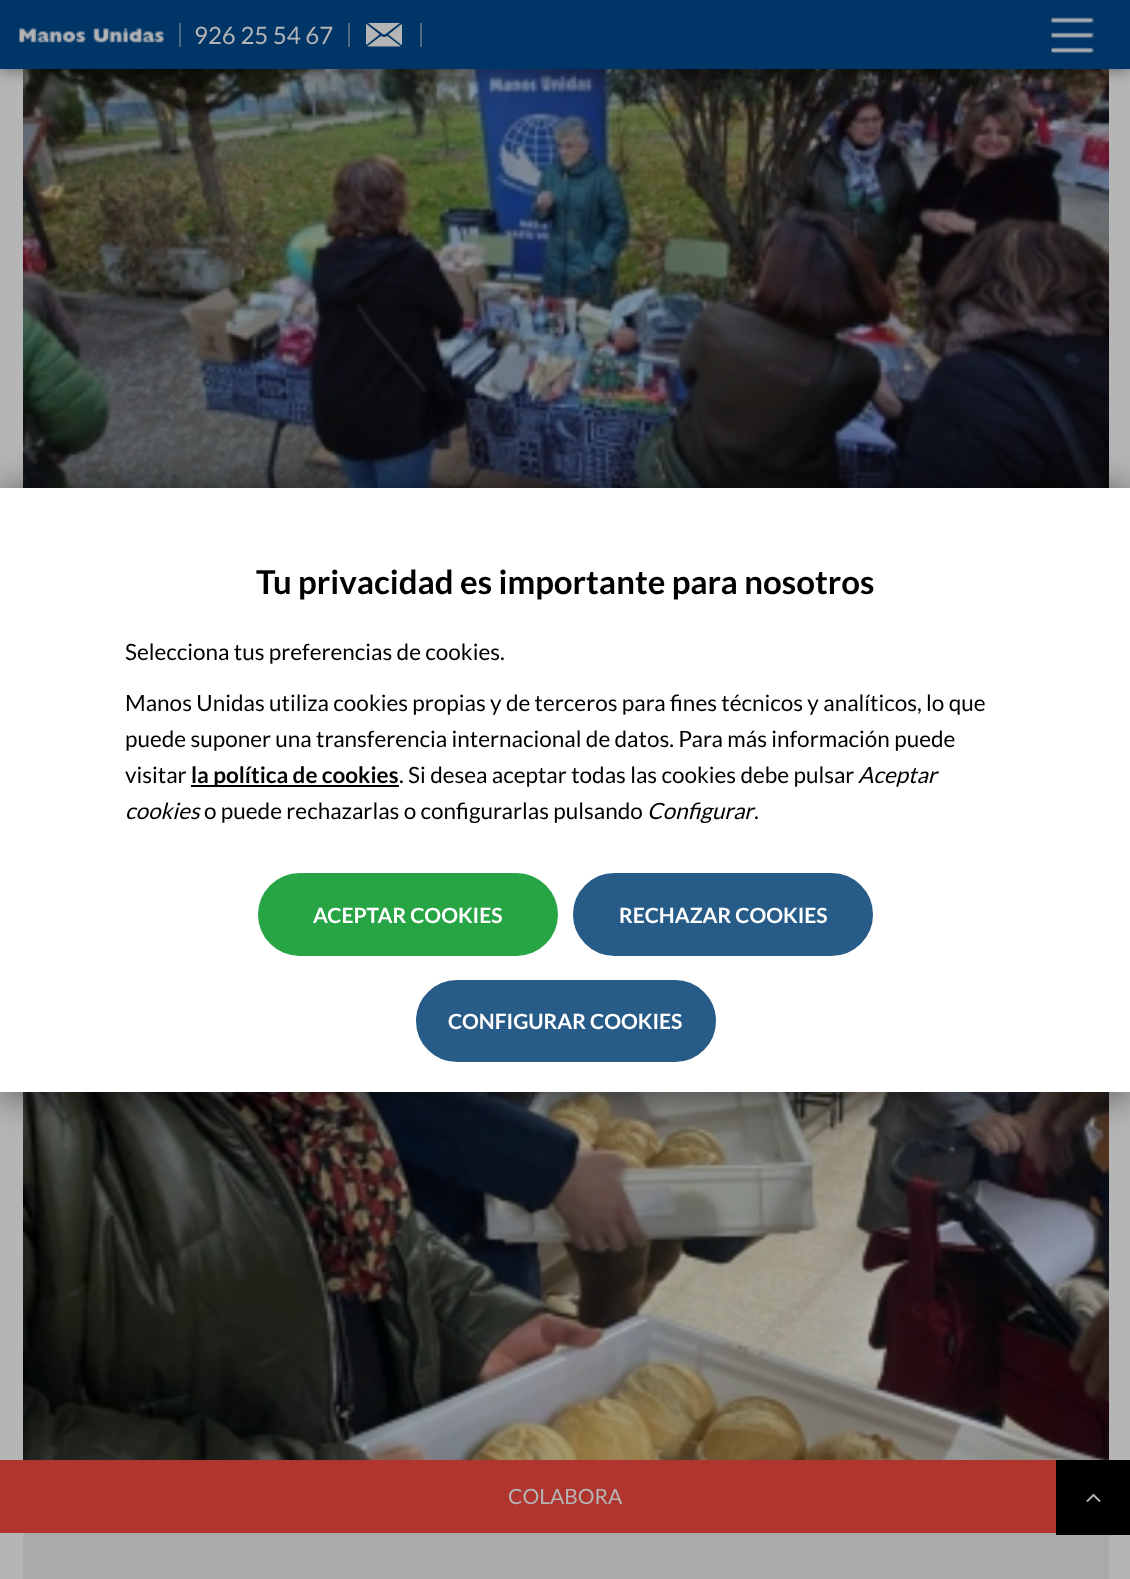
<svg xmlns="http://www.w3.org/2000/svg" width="1130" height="1579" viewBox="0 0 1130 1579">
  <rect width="100%" height="100%" fill="rgb(181,181,181)"/>
  <image x="23" y="69" width="1086" height="419" href="pic4.png"/>
  <rect x="0" y="3" width="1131" height="69" fill="rgba(0,0,0,0.35)" filter="blur(7px)"/>
  <rect x="0" y="0" width="1130" height="69" fill="rgb(0,53,104)"/>
  <image x="19" y="28" width="145" height="15" href="pic1.png"/>
  <rect x="179" y="23" width="2" height="24" fill="rgb(75,106,136)"/>
  <text x="194" y="44" font-family="Lato" font-size="24" fill="rgb(181,181,181)">926 25 54 67</text>
  <rect x="348" y="23" width="2" height="24" fill="rgb(75,106,136)"/>
  <image x="366" y="23" width="36" height="24" href="pic2.png"/>
  <rect x="420" y="23" width="2" height="24" fill="rgb(75,106,136)"/>
  <image x="1051" y="17" width="43" height="36" href="pic3.png"/>
  <image x="23" y="1092" width="1086" height="368" href="pic5.png"/>
  <rect x="0" y="491" width="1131" height="604" fill="rgba(0,0,0,0.55)" filter="blur(19.5px)"/>
  <rect x="0" y="488" width="1130" height="604" fill="rgb(255,255,255)"/>
  <text x="256" y="594" font-family="Lato" font-size="33" font-weight="bold" fill="rgb(0,0,0)">Tu privacidad es importante para nosotros</text>
  <g font-family="Lato" font-size="22.5" fill="rgb(0,0,0)">
    <text x="125" y="660">Selecciona tus preferencias de cookies.</text>
    <text>
      <tspan x="125" y="711">Manos Unidas utiliza cookies propias y de terceros para fines técnicos y analíticos, lo que</tspan>
      <tspan x="125" y="747">puede suponer una transferencia internacional de datos. Para más información puede</tspan>
      <tspan x="125" y="783">visitar</tspan>
    </text>
  </g>
  <rect x="191" y="785" width="208" height="2" fill="rgb(0,0,0)"/>
  <text x="191" y="783" font-family="Lato" font-size="22.5" font-weight="bold" fill="rgb(0,0,0)">la política de cookies</text>
  <text x="399" y="783" font-family="Lato" font-size="22.5" fill="rgb(0,0,0)">. Si desea aceptar todas las cookies debe pulsar</text>
  <g font-family="Lato" font-size="22.5" font-style="italic" fill="rgb(0,0,0)">
    <text x="858" y="783">Aceptar</text>
    <text x="125" y="819">cookies</text>
  </g>
  <text x="204" y="819" font-family="Lato" font-size="22.5" fill="rgb(0,0,0)">o puede rechazarlas o configurarlas pulsando</text>
  <text x="647" y="819" font-family="Lato" font-size="22.5" font-style="italic" fill="rgb(0,0,0)">Configurar</text>
  <text x="754" y="819" font-family="Lato" font-size="22.5" fill="rgb(0,0,0)">.</text>
  <rect x="258" y="873" width="300" height="83" rx="41.5" fill="rgb(39,164,68)"/>
  <text x="313" y="923" font-family="Lato" font-size="21" font-weight="bold" fill="rgb(255,255,255)">ACEPTAR COOKIES</text>
  <rect x="574" y="874" width="298" height="81" rx="40.5" fill="rgb(40,92,136)" stroke="rgb(40,92,136)" stroke-width="2"/>
  <text x="619" y="923" font-family="Lato" font-size="21" font-weight="bold" fill="rgb(255,255,255)">RECHAZAR COOKIES</text>
  <rect x="417" y="981" width="298" height="80" rx="40" fill="rgb(40,92,136)" stroke="rgb(40,92,136)" stroke-width="2"/>
  <text x="448" y="1029" font-family="Lato" font-size="21" font-weight="bold" fill="rgb(255,255,255)">CONFIGURAR COOKIES</text>
  <rect x="23" y="1533" width="1086" height="46" fill="rgb(170,170,170)"/>
  <rect x="0" y="1460" width="1056" height="73" fill="rgb(176,53,46)"/>
  <text x="508" y="1504" font-family="Lato" font-size="21" fill="rgb(181,181,181)">COLABORA</text>
  <rect x="1056" y="1460" width="74" height="75" fill="rgb(0,0,0)"/>
  <image x="1086" y="1493" width="15" height="9" href="pic6.png"/>
</svg>
